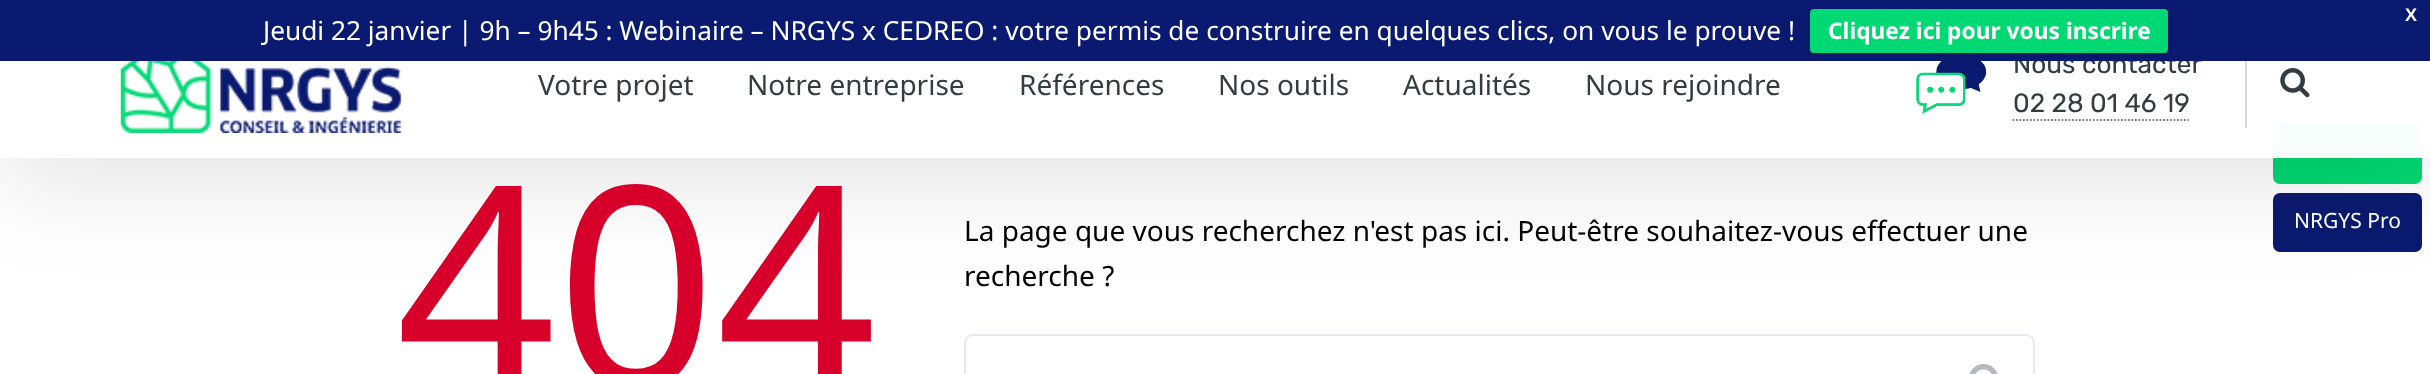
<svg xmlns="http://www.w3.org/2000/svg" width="2430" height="374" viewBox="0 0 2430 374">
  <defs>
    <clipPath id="clip1"><path d="M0 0H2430V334H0ZM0 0H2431V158H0Z" clip-rule="evenodd"/></clipPath>
  </defs>
  <rect width="100%" height="100%" fill="rgb(255,255,255)"/>
  <rect x="2273" y="124" width="149" height="60" rx="7" fill="rgb(0,216,115)"/>
  <rect x="2273" y="193" width="149" height="59" rx="7" fill="rgb(10,26,112)"/>
  <g clip-path="url(#clip1)">
    <rect x="0" y="18" width="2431" height="157" fill="rgba(0,0,0,0.12)" filter="blur(52.5px)"/>
  </g>
  <text x="2013" y="73" font-family="Rubik" font-size="26.25" fill="rgb(51,61,65)">Nous contacter</text>
  <rect x="0" y="0" width="2430" height="61" fill="rgb(10,26,112)"/>
  <text x="2405" y="21" font-family="Liberation Sans" font-size="18" font-weight="bold" fill="rgb(255,255,255)">X</text>
  <text x="263" y="40" font-family="Noto Sans" font-size="26.25" fill="rgb(255,255,255)">Jeudi 22 janvier | 9h – 9h45 : Webinaire – NRGYS x CEDREO : votre permis de construire en quelques clics, on vous le prouve !</text>
  <rect x="1810" y="11" width="358" height="43" rx="4" fill="rgba(0,0,0,0.2)" filter="blur(2px)"/>
  <rect x="1810" y="9" width="358" height="44" rx="4" fill="rgb(0,216,115)"/>
  <text x="1828" y="39" font-family="Noto Sans" font-size="22.75" font-weight="bold" fill="rgb(255,255,255)">Cliquez ici pour vous inscrire</text>
  <rect x="0" y="124" width="2430" height="34" fill="rgba(255,255,255,0.97)"/>
  <image x="120" y="61" width="282" height="72" href="pic1.png"/>
  <g font-family="Noto Sans" font-size="28" fill="rgb(51,61,65)">
    <text x="538" y="95">Votre projet</text>
    <text x="747" y="95">Notre entreprise</text>
    <text x="1019" y="95">Références</text>
    <text x="1218" y="95">Nos outils</text>
    <text x="1403" y="95">Actualités</text>
    <text x="1585" y="95">Nous rejoindre</text>
  </g>
  <image x="1916" y="61" width="71" height="53" href="pic2.png"/>
  <text x="2013" y="112" font-family="Rubik" font-size="26.25" fill="rgb(51,61,65)">02 28 01 46 19</text>
  <path d="M2012.5 120H2189" fill="none" stroke="rgb(127,127,127)" stroke-width="1.8" stroke-dasharray="1.75 1.75"/>
  <rect x="2245" y="61" width="2" height="67" fill="rgb(217,217,217)"/>
  <image x="2280" y="68" width="30" height="30" href="pic3.png"/>
  <text x="396" y="387" font-family="Noto Sans" font-size="280" fill="rgb(214,0,42)">404</text>
  <g font-family="Noto Sans" font-size="28" fill="rgb(0,0,0)">
    <text>
      <tspan x="964" y="241">La page que vous recherchez n'est pas ici. Peut-être souhaitez-vous effectuer une</tspan>
      <tspan x="964" y="286">recherche ?</tspan>
    </text>
  </g>
  <rect x="965" y="335" width="1069" height="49" rx="8" fill="none" stroke="rgb(230,234,239)" stroke-width="2"/>
  <image x="1969" y="364" width="29" height="10" href="pic4.png"/>
  <text x="2294" y="228" font-family="Noto Sans" font-size="21" fill="rgb(255,255,255)">NRGYS Pro</text>
</svg>
